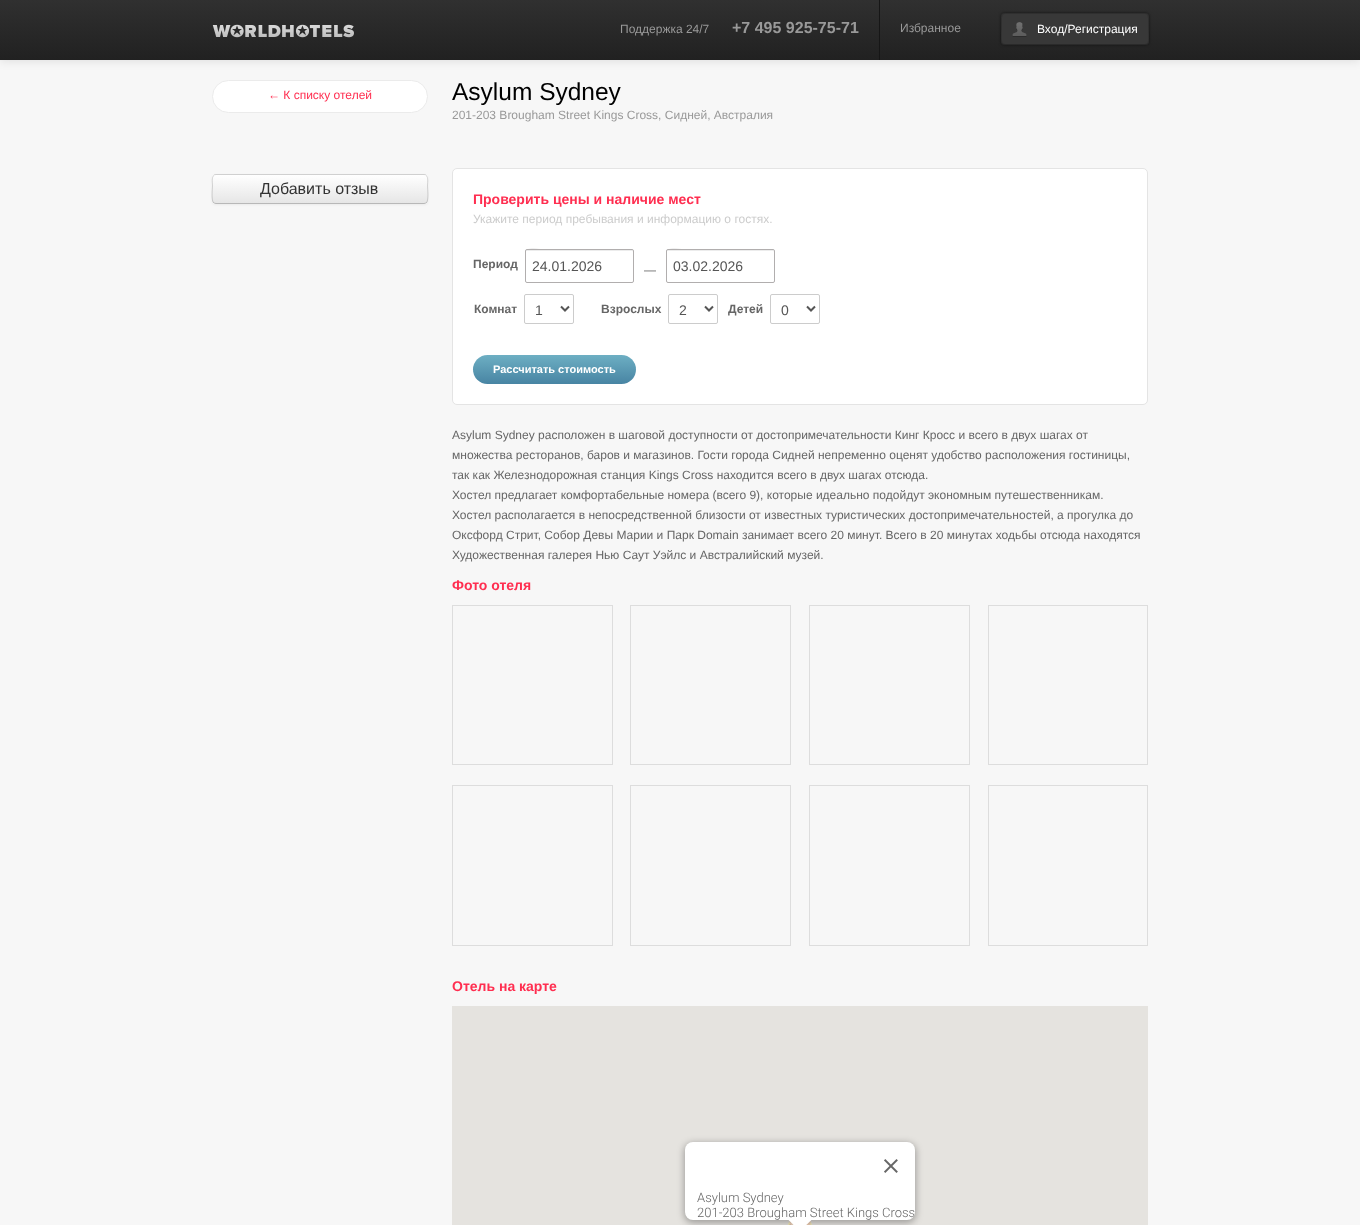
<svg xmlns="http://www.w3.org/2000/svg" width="1360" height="1225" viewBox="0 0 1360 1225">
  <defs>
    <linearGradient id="g1" gradientUnits="userSpaceOnUse" x1="680" y1="0" x2="680" y2="60"><stop offset="0" stop-color="rgb(48,48,48)"/><stop offset="1" stop-color="rgb(33,33,33)"/></linearGradient>
    <clipPath id="clip1"><rect x="212" y="174" width="216" height="30" rx="4"/></clipPath>
    <linearGradient id="g2" gradientUnits="userSpaceOnUse" x1="320" y1="175" x2="320" y2="203"><stop offset="0" stop-color="rgb(255,255,255)"/><stop offset="1" stop-color="rgb(230,230,230)"/></linearGradient>
    <linearGradient id="g3" gradientUnits="userSpaceOnUse" x1="555" y1="355" x2="555" y2="384"><stop offset="0" stop-color="rgb(109,175,195)"/><stop offset="1" stop-color="rgb(72,132,163)"/></linearGradient>
    <clipPath id="clip2"><rect x="685" y="1142" width="230" height="78" rx="8"/></clipPath>
  </defs>
  <rect width="100%" height="100%" fill="rgb(247,247,247)"/>
  <rect x="0" y="1" width="1360" height="60" fill="rgba(0,0,0,0.1)" filter="blur(5px)"/>
  <rect x="0" y="0" width="1360" height="60" fill="url(#g1)"/>
  <image x="212" y="24" width="142" height="14" href="pic1.png"/>
  <text x="620" y="33" font-family="Liberation Sans" font-size="12" fill="rgb(153,153,153)">Поддержка 24/7</text>
  <text x="732" y="33" font-family="Liberation Sans" font-size="16" font-weight="bold" fill="rgb(153,153,153)">+7 495 925-75-71</text>
  <rect x="879" y="0" width="1" height="60" fill="rgb(22,22,22)"/>
  <text x="900" y="32" font-family="Liberation Sans" font-size="12" fill="rgb(153,153,153)">Избранное</text>
  <rect x="1001" y="13" width="148" height="32" rx="4" fill="rgb(19,19,19)" filter="blur(1.5px)"/>
  <rect x="1001" y="13" width="148" height="32" rx="4" fill="rgb(56,56,56)"/>
  <image x="1012" y="22" width="15" height="15" href="pic2.png"/>
  <path d="M1147.5 43.5C1147 44 1146 44.5 1145 44.5H1005C1004 44.5 1003 44 1002.5 43.5" fill="none" stroke="rgba(0,0,0,0.25)"/>
  <path d="M1002.5 43.5C1000.5 41 1001.5 32 1001.5 29V21C1001.5 18.5 1001 13.5 1005 13.5H1145C1149 13.5 1148.5 18.5 1148.5 21V29C1148.5 32 1149.5 41 1147.5 43.5" fill="none" stroke="rgba(0,0,0,0.15)"/>
  <text x="1037" y="33" font-family="Liberation Sans" font-size="12" fill="rgb(255,255,255)">Вход/Регистрация</text>
  <rect x="212.5" y="80.5" width="215" height="32" rx="16" fill="rgb(255,255,255)" stroke="rgb(235,235,235)"/>
  <text x="268" y="99" font-family="Liberation Sans" font-size="12" fill="rgb(255,46,80)">← К списку отелей</text>
  <rect x="212" y="175" width="216" height="30" rx="4" fill="rgba(0,0,0,0.05)" filter="blur(1px)"/>
  <rect x="212" y="174" width="216" height="30" rx="4" fill="rgb(245,245,245)"/>
  <g clip-path="url(#clip1)">
    <rect x="212" y="175" width="216" height="28" fill="url(#g2)"/>
  </g>
  <path d="M426.5 202.5C426 203 425 203.5 424 203.5H216C215 203.5 214 203 213.5 202.5" fill="none" stroke="rgb(184,184,184)"/>
  <path d="M213.5 202.5C211 200 212.5 188.5 212.5 185.5C212.5 182.5 211 174.5 216 174.5H424C429 174.5 427.5 182.5 427.5 185.5C427.5 188.5 429 200 426.5 202.5" fill="none" stroke="rgba(0,0,0,0.15)"/>
  <text x="260" y="194" font-family="Liberation Sans" font-size="16" fill="rgb(51,51,51)">Добавить отзыв</text>
  <text x="452" y="100" font-family="Liberation Sans" font-size="24.5" fill="rgb(0,0,0)">Asylum Sydney</text>
  <text x="452" y="119" font-family="Liberation Sans" font-size="12" fill="rgb(153,153,153)">201-203 Brougham Street Kings Cross, Сидней, Австралия</text>
  <rect x="452.5" y="168.5" width="695" height="236" rx="4.5" fill="rgb(255,255,255)" stroke="rgb(228,228,228)"/>
  <text x="473" y="204" font-family="Liberation Sans" font-size="14" font-weight="bold" fill="rgb(255,46,80)">Проверить цены и наличие мест</text>
  <text x="473" y="223" font-family="Liberation Sans" font-size="12" fill="rgb(204,204,204)">Укажите период пребывания и информацию о гостях.</text>
  <text x="473" y="268" font-family="Liberation Sans" font-size="12" font-weight="bold" fill="rgb(102,102,102)">Период</text>
  <path d="M527 251H633V252L632 250H544C544 250 526 245 526 252C526 251 526 251 527 251Z" fill="rgb(236,236,236)"/>
  <rect x="525.5" y="249.5" width="108" height="33" rx="1.5" fill="none" stroke="rgb(177,174,174)"/>
  <text x="532" y="271" font-family="Liberation Sans" font-size="14" fill="rgb(85,85,85)">24.01.2026</text>
  <text x="644" y="274" font-family="Liberation Sans" font-size="12" fill="rgb(102,102,102)">—</text>
  <path d="M668 251H774V252L773 250H686C685 250 667 245 667 252C667 251 667 251 668 251Z" fill="rgb(236,236,236)"/>
  <rect x="666.5" y="249.5" width="108" height="33" rx="1.5" fill="none" stroke="rgb(177,174,174)"/>
  <text x="673" y="271" font-family="Liberation Sans" font-size="14" fill="rgb(85,85,85)">03.02.2026</text>
  <text x="474" y="313" font-family="Liberation Sans" font-size="12" font-weight="bold" fill="rgb(102,102,102)">Комнат</text>
  <rect x="524.5" y="294.5" width="49" height="29" rx="1.5" fill="none" stroke="rgb(204,204,204)"/>
  <path d="M561 306.5L565 310.5L569 306.5" fill="none" stroke="rgb(85,85,85)" stroke-width="2"/>
  <text x="535" y="315" font-family="Liberation Sans" font-size="14" fill="rgb(85,85,85)">1</text>
  <text x="601" y="313" font-family="Liberation Sans" font-size="12" font-weight="bold" fill="rgb(102,102,102)">Взрослых</text>
  <rect x="668.5" y="294.5" width="49" height="29" rx="1.5" fill="none" stroke="rgb(204,204,204)"/>
  <path d="M705 306.5L709 310.5L713 306.5" fill="none" stroke="rgb(85,85,85)" stroke-width="2"/>
  <text x="679" y="315" font-family="Liberation Sans" font-size="14" fill="rgb(85,85,85)">2</text>
  <text x="728" y="313" font-family="Liberation Sans" font-size="12" font-weight="bold" fill="rgb(102,102,102)">Детей</text>
  <rect x="770.5" y="294.5" width="49" height="29" rx="1.5" fill="none" stroke="rgb(204,204,204)"/>
  <path d="M807 306.5L811 310.5L815 306.5" fill="none" stroke="rgb(85,85,85)" stroke-width="2"/>
  <text x="781" y="315" font-family="Liberation Sans" font-size="14" fill="rgb(85,85,85)">0</text>
  <rect x="473" y="355" width="163" height="29" rx="14.5" fill="url(#g3)"/>
  <text x="493" y="373" font-family="Liberation Sans" font-size="11" font-weight="bold" fill="rgb(255,255,255)">Рассчитать стоимость</text>
  <g font-family="Liberation Sans" font-size="12" fill="rgb(102,102,102)">
    <text>
      <tspan x="452" y="439">Asylum Sydney расположен в шаговой доступности от достопримечательности Кинг Кросс и всего в двух шагах от</tspan>
      <tspan x="452" y="459">множества ресторанов, баров и магазинов. Гости города Сидней непременно оценят удобство расположения гостиницы,</tspan>
      <tspan x="452" y="479">так как Железнодорожная станция Kings Cross находится всего в двух шагах отсюда.</tspan>
      <tspan x="452" y="499">Хостел предлагает комфортабельные номера (всего 9), которые идеально подойдут экономным путешественникам.</tspan>
      <tspan x="452" y="519">Хостел располагается в непосредственной близости от известных туристических достопримечательностей, а прогулка до</tspan>
      <tspan x="452" y="539">Оксфорд Стрит, Собор Девы Марии и Парк Domain занимает всего 20 минут. Всего в 20 минутах ходьбы отсюда находятся</tspan>
      <tspan x="452" y="559">Художественная галерея Нью Саут Уэйлс и Австралийский музей.</tspan>
    </text>
  </g>
  <text x="452" y="590" font-family="Liberation Sans" font-size="14" font-weight="bold" fill="rgb(255,46,80)">Фото отеля</text>
  <rect x="452.5" y="605.5" width="160" height="159" fill="none" stroke="rgb(221,221,221)"/>
  <rect x="630.5" y="605.5" width="160" height="159" fill="none" stroke="rgb(221,221,221)"/>
  <rect x="809.5" y="605.5" width="160" height="159" fill="none" stroke="rgb(221,221,221)"/>
  <rect x="988.5" y="605.5" width="159" height="159" fill="none" stroke="rgb(221,221,221)"/>
  <rect x="452.5" y="785.5" width="160" height="160" fill="none" stroke="rgb(221,221,221)"/>
  <rect x="630.5" y="785.5" width="160" height="160" fill="none" stroke="rgb(221,221,221)"/>
  <rect x="809.5" y="785.5" width="160" height="160" fill="none" stroke="rgb(221,221,221)"/>
  <rect x="988.5" y="785.5" width="159" height="160" fill="none" stroke="rgb(221,221,221)"/>
  <text x="452" y="991" font-family="Liberation Sans" font-size="14" font-weight="bold" fill="rgb(255,46,80)">Отель на карте</text>
  <rect x="452" y="1006" width="696" height="219" fill="rgb(229,227,223)"/>
  <image x="788" y="1220" width="24" height="5" href="pic4.png"/>
  <rect x="684" y="1143" width="232" height="80" rx="9" fill="rgba(0,0,0,0.3)" filter="blur(3.5px)"/>
  <rect x="685" y="1142" width="230" height="78" rx="8" fill="rgb(255,255,255)"/>
  <image x="884" y="1159" width="14" height="14" href="pic3.png"/>
  <text x="697" y="1202" font-family="Roboto" font-size="13" font-weight="300" fill="rgb(102,102,102)">Asylum Sydney</text>
  <g clip-path="url(#clip2)">
    <text x="697" y="1217" font-family="Roboto" font-size="13" font-weight="300" fill="rgb(102,102,102)">201-203 Brougham Street Kings Cross</text>
  </g>
  <path d="M788 1219.5V1219H812.5L800 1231Z" fill="rgb(255,255,255)"/>
</svg>
